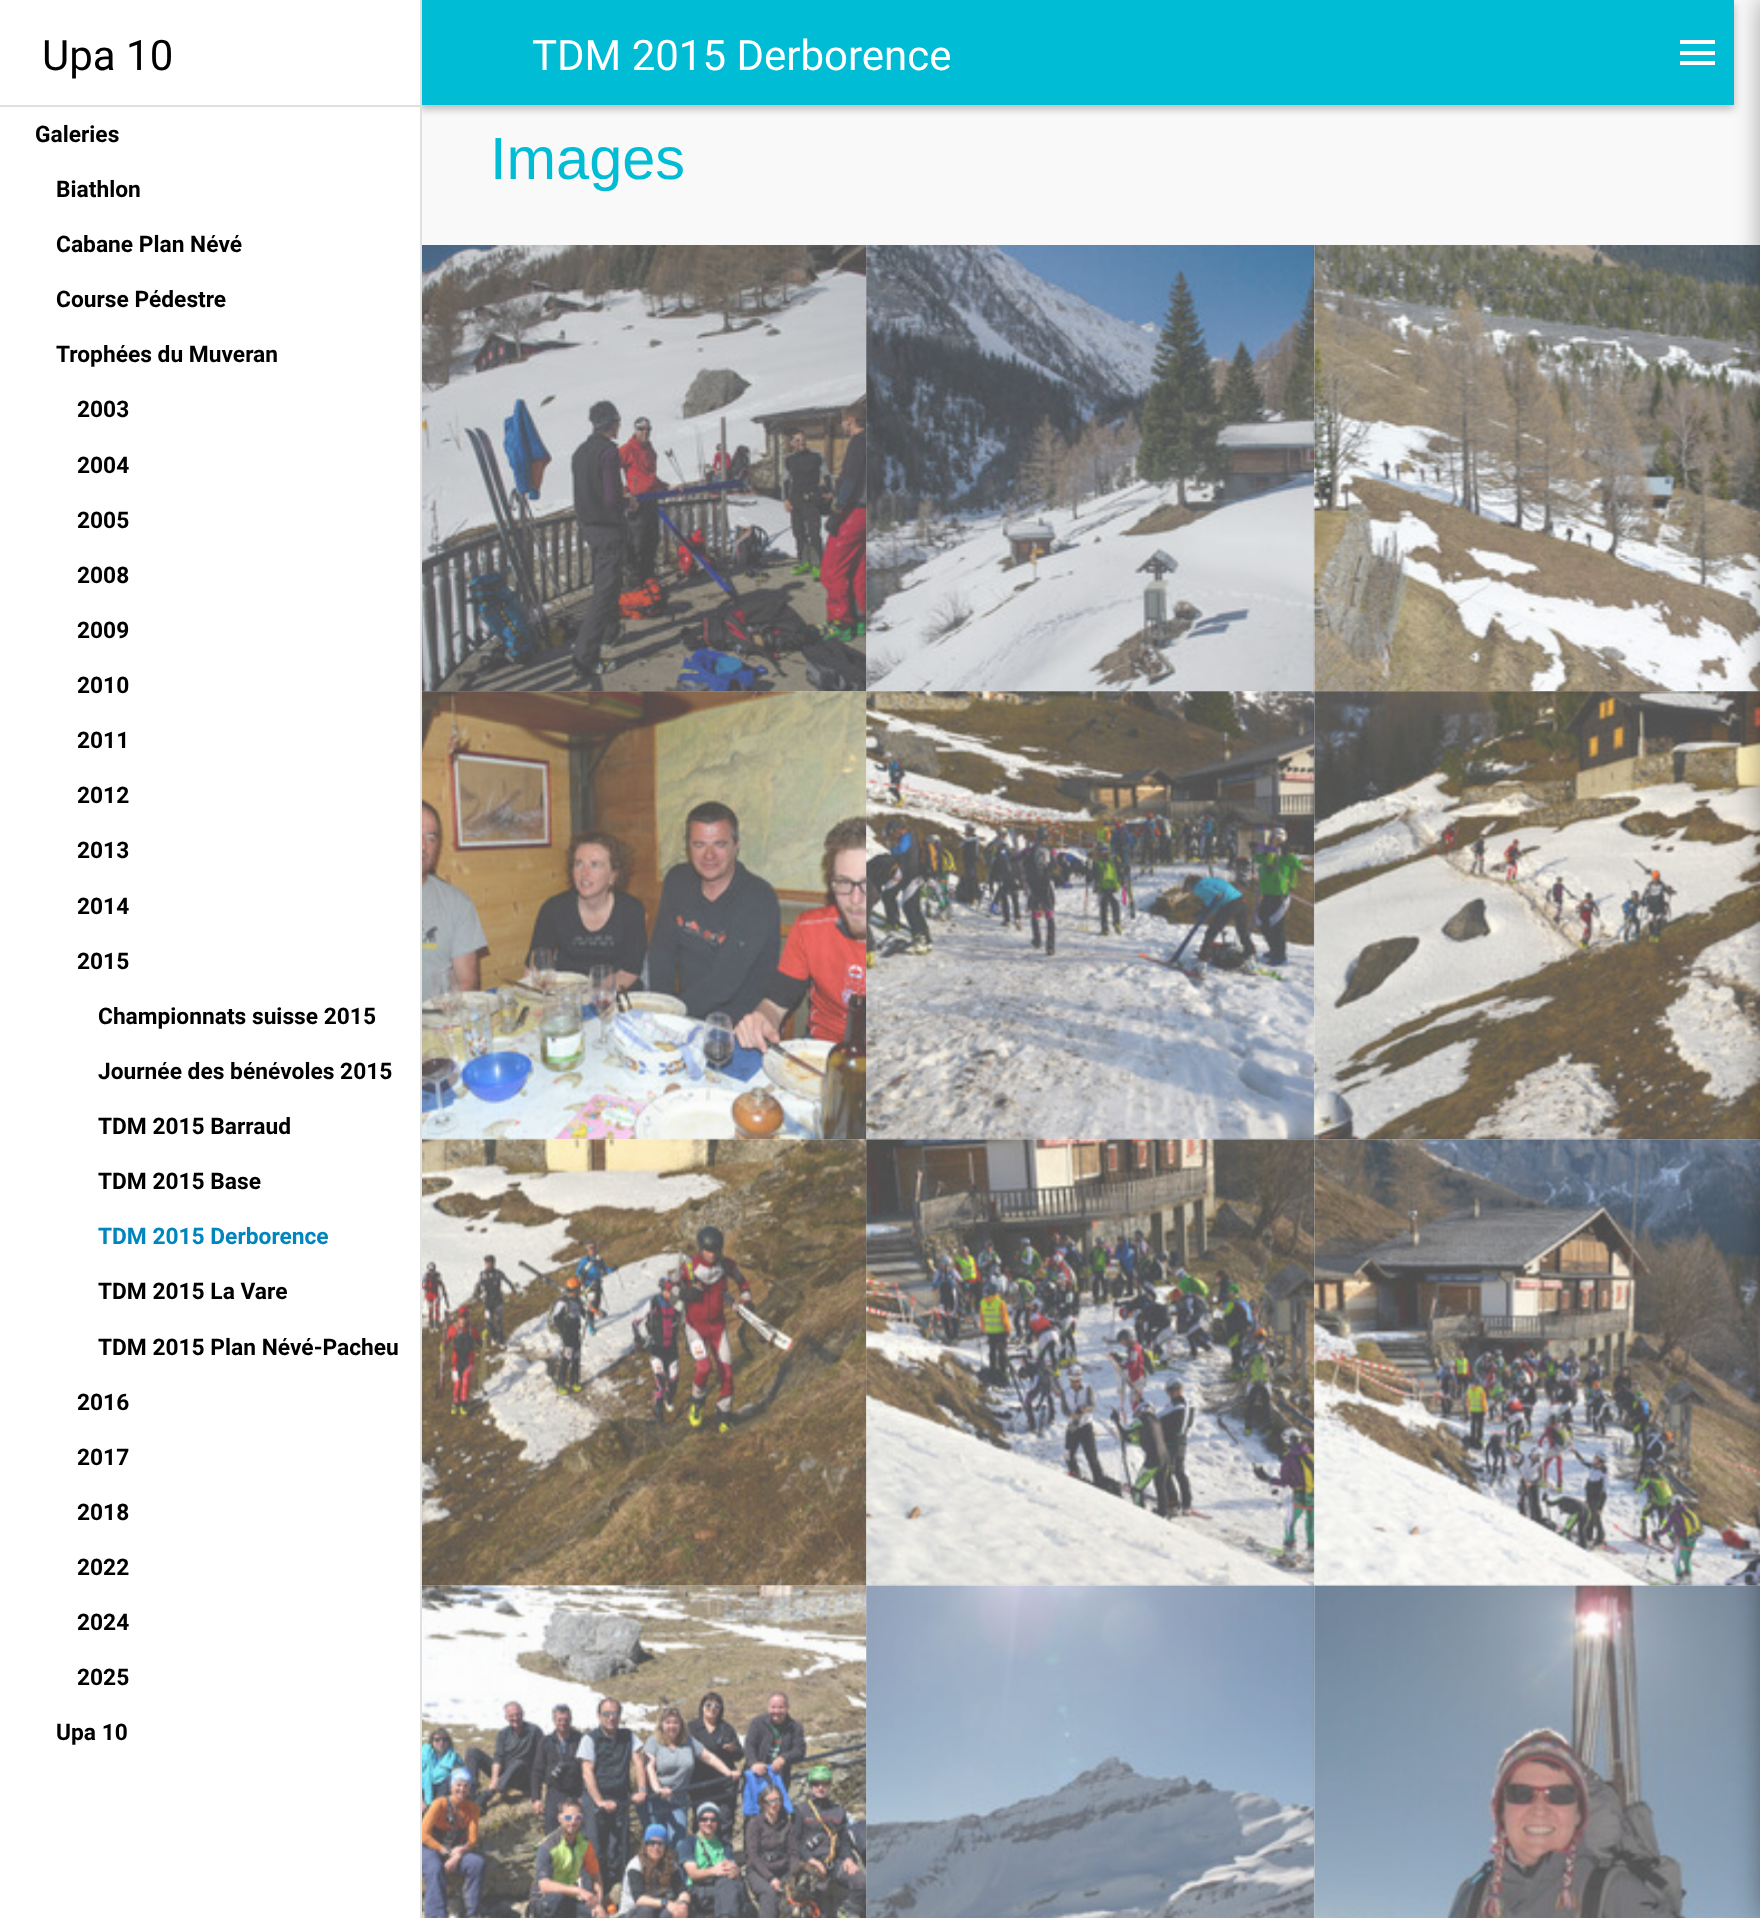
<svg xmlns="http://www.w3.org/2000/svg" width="1760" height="1918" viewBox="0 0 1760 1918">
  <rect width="100%" height="100%" fill="rgb(249,249,249)"/>
  <rect x="420" y="4" width="1314" height="105" fill="rgba(0,0,0,0.26)" filter="blur(4.5px)"/>
  <rect x="0" y="0" width="420" height="1918" fill="rgb(255,255,255)"/>
  <rect x="420" y="0" width="2" height="1918" fill="rgb(224,224,224)"/>
  <rect x="0" y="105" width="420" height="2" fill="rgb(224,224,224)"/>
  <text x="42" y="70" font-family="Roboto" font-size="42" fill="rgb(0,0,0)">Upa 10</text>
  <g font-family="Roboto" font-size="22.75" font-weight="bold" fill="rgb(0,0,0)">
    <text x="35" y="142">Galeries</text>
    <text x="56" y="197">Biathlon</text>
    <text x="56" y="252">Cabane Plan Névé</text>
    <text x="56" y="307">Course Pédestre</text>
    <text x="56" y="362">Trophées du Muveran</text>
    <text x="77" y="417">2003</text>
    <text x="77" y="473">2004</text>
    <text x="77" y="528">2005</text>
    <text x="77" y="583">2008</text>
    <text x="77" y="638">2009</text>
    <text x="77" y="693">2010</text>
    <text x="77" y="748">2011</text>
    <text x="77" y="803">2012</text>
    <text x="77" y="858">2013</text>
    <text x="77" y="914">2014</text>
    <text x="77" y="969">2015</text>
    <text x="98" y="1024">Championnats suisse 2015</text>
    <text x="98" y="1079">Journée des bénévoles 2015</text>
    <text x="98" y="1134">TDM 2015 Barraud</text>
    <text x="98" y="1189">TDM 2015 Base</text>
  </g>
  <text x="98" y="1244" font-family="Roboto" font-size="22.75" font-weight="bold" fill="rgb(0,133,190)">TDM 2015 Derborence</text>
  <g font-family="Roboto" font-size="22.75" font-weight="bold" fill="rgb(0,0,0)">
    <text x="98" y="1299">TDM 2015 La Vare</text>
    <text x="98" y="1355">TDM 2015 Plan Névé-Pacheu</text>
    <text x="77" y="1410">2016</text>
    <text x="77" y="1465">2017</text>
    <text x="77" y="1520">2018</text>
    <text x="77" y="1575">2022</text>
    <text x="77" y="1630">2024</text>
    <text x="77" y="1685">2025</text>
    <text x="56" y="1740">Upa 10</text>
  </g>
  <rect x="422" y="0" width="1312" height="105" fill="rgb(0,188,212)"/>
  <text x="532" y="70" font-family="Roboto" font-size="42" fill="rgb(255,255,255)">TDM 2015 Derborence</text>
  <text x="490" y="179" font-family="Liberation Sans" font-size="59.5" fill="rgb(0,188,212)">Images</text>
  <image x="422" y="245" width="445" height="447" href="pic1.png"/>
  <image x="866" y="245" width="449" height="447" href="pic2.png"/>
  <image x="1313" y="245" width="447" height="447" href="pic3.png"/>
  <image x="422" y="691" width="445" height="449" href="pic4.png"/>
  <image x="866" y="691" width="449" height="449" href="pic5.png"/>
  <image x="1313" y="691" width="447" height="449" href="pic6.png"/>
  <image x="422" y="1138" width="445" height="448" href="pic7.png"/>
  <image x="866" y="1138" width="449" height="448" href="pic8.png"/>
  <image x="1313" y="1138" width="447" height="448" href="pic9.png"/>
  <image x="422" y="1584" width="445" height="334" href="pic10.png"/>
  <image x="866" y="1584" width="449" height="334" href="pic11.png"/>
  <image x="1313" y="1584" width="447" height="334" href="pic12.png"/>
  <rect x="1680" y="51" width="35" height="4" fill="rgb(255,255,255)"/>
  <rect x="1680" y="40" width="35" height="4" fill="rgb(255,255,255)"/>
  <rect x="1680" y="61" width="35" height="4" fill="rgb(255,255,255)"/>
  <rect x="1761" y="0" width="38" height="1918" fill="rgba(0,0,0,0.36)" filter="blur(13px)"/>
</svg>
